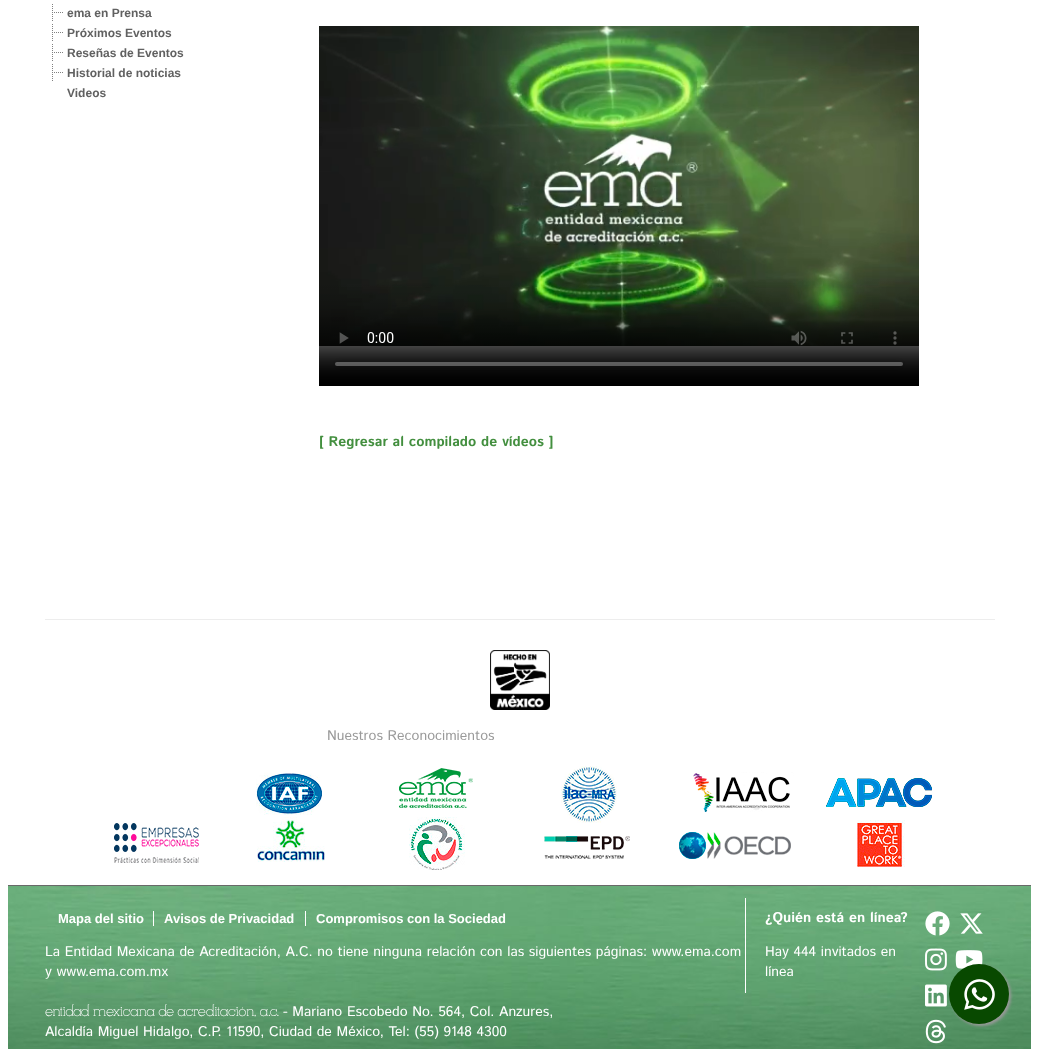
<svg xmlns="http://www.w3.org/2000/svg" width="1039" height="1049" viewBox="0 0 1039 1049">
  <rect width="100%" height="100%" fill="rgb(255,255,255)"/>
  <image x="52" y="4" width="11" height="17" href="pic1.png"/>
  <text x="67" y="17" font-family="Liberation Sans" font-size="12" font-weight="bold" fill="rgb(97,97,97)">ema en Prensa</text>
  <image x="52" y="24" width="11" height="17" href="pic1.png"/>
  <text x="67" y="37" font-family="Liberation Sans" font-size="12" font-weight="bold" fill="rgb(97,97,97)">Próximos Eventos</text>
  <image x="52" y="44" width="11" height="17" href="pic1.png"/>
  <text x="67" y="57" font-family="Liberation Sans" font-size="12" font-weight="bold" fill="rgb(97,97,97)">Reseñas de Eventos</text>
  <image x="52" y="64" width="11" height="17" href="pic1.png"/>
  <g font-family="Liberation Sans" font-size="12" font-weight="bold" fill="rgb(97,97,97)">
    <text>
      <tspan x="67" y="77">Historial de noticias</tspan>
      <tspan x="67" y="97">Videos</tspan>
    </text>
  </g>
  <image x="319" y="26" width="600" height="360" href="pic2.png"/>
  <text x="319" y="446" font-family="Istok Web" font-size="14" font-weight="bold" fill="rgb(67,143,63)">[ Regresar al compilado de vídeos ]</text>
  <rect x="45" y="619" width="950" height="1" fill="rgb(237,237,237)"/>
  <image x="490" y="650" width="60" height="60" href="pic3.png"/>
  <text x="327" y="740" font-family="Istok Web" font-size="14" fill="rgb(154,154,154)">Nuestros Reconocimientos</text>
  <image x="114" y="766" width="818" height="104" href="pic4.png"/>
  <image x="8" y="886" width="1023" height="163" href="pic5.png"/>
  <rect x="8" y="885" width="1023" height="1" fill="rgb(105,105,105)"/>
  <rect x="745" y="898" width="1" height="95" fill="rgb(255,255,255)"/>
  <rect x="153" y="911" width="1" height="15" fill="rgb(255,255,255)"/>
  <text x="58" y="923" font-family="Liberation Sans" font-size="13" font-weight="bold" fill="rgb(255,255,255)">Mapa del sitio</text>
  <rect x="305" y="911" width="1" height="15" fill="rgb(255,255,255)"/>
  <g font-family="Liberation Sans" font-size="13" font-weight="bold" fill="rgb(255,255,255)">
    <text x="164" y="923">Avisos de Privacidad</text>
    <text x="316" y="923">Compromisos con la Sociedad</text>
  </g>
  <g font-family="Istok Web" font-size="14" fill="rgb(255,255,255)">
    <text>
      <tspan x="45" y="956">La Entidad Mexicana de Acreditación, A.C. no tiene ninguna relación con las siguientes páginas: www.ema.com</tspan>
      <tspan x="45" y="976">y www.ema.com.mx</tspan>
    </text>
  </g>
  <text x="45" y="1016" font-family="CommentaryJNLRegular" font-size="14" fill="rgb(255,255,255)">entidad mexicana de acreditación, a.c.</text>
  <g font-family="Istok Web" font-size="14" fill="rgb(255,255,255)">
    <text x="283" y="1016">- Mariano Escobedo No. 564, Col. Anzures,</text>
    <text x="45" y="1036">Alcaldía Miguel Hidalgo, C.P. 11590, Ciudad de México, Tel: (55) 9148 4300</text>
  </g>
  <text x="765" y="922" font-family="Istok Web" font-size="14" font-weight="bold" fill="rgb(255,255,255)">¿Quién está en línea?</text>
  <g font-family="Istok Web" font-size="14" fill="rgb(255,255,255)">
    <text>
      <tspan x="765" y="956">Hay 444 invitados en</tspan>
      <tspan x="765" y="976">línea</tspan>
    </text>
  </g>
  <image x="925" y="911" width="25" height="25" href="pic6.png"/>
  <image x="960" y="913" width="23" height="21" href="pic7.png"/>
  <image x="925" y="948" width="22" height="23" href="pic8.png"/>
  <image x="955" y="950" width="28" height="19" href="pic9.png"/>
  <image x="925" y="984" width="22" height="23" href="pic10.png"/>
  <image x="925" y="1019" width="21" height="25" href="pic11.png"/>
  <rect x="951" y="966" width="60" height="60" rx="30" fill="rgb(153,153,153)" filter="blur(1.5px)"/>
  <circle cx="979" cy="994" r="30" fill="rgb(8,73,0)"/>
  <image x="964" y="979" width="31" height="31" href="pic12.png"/>
</svg>
